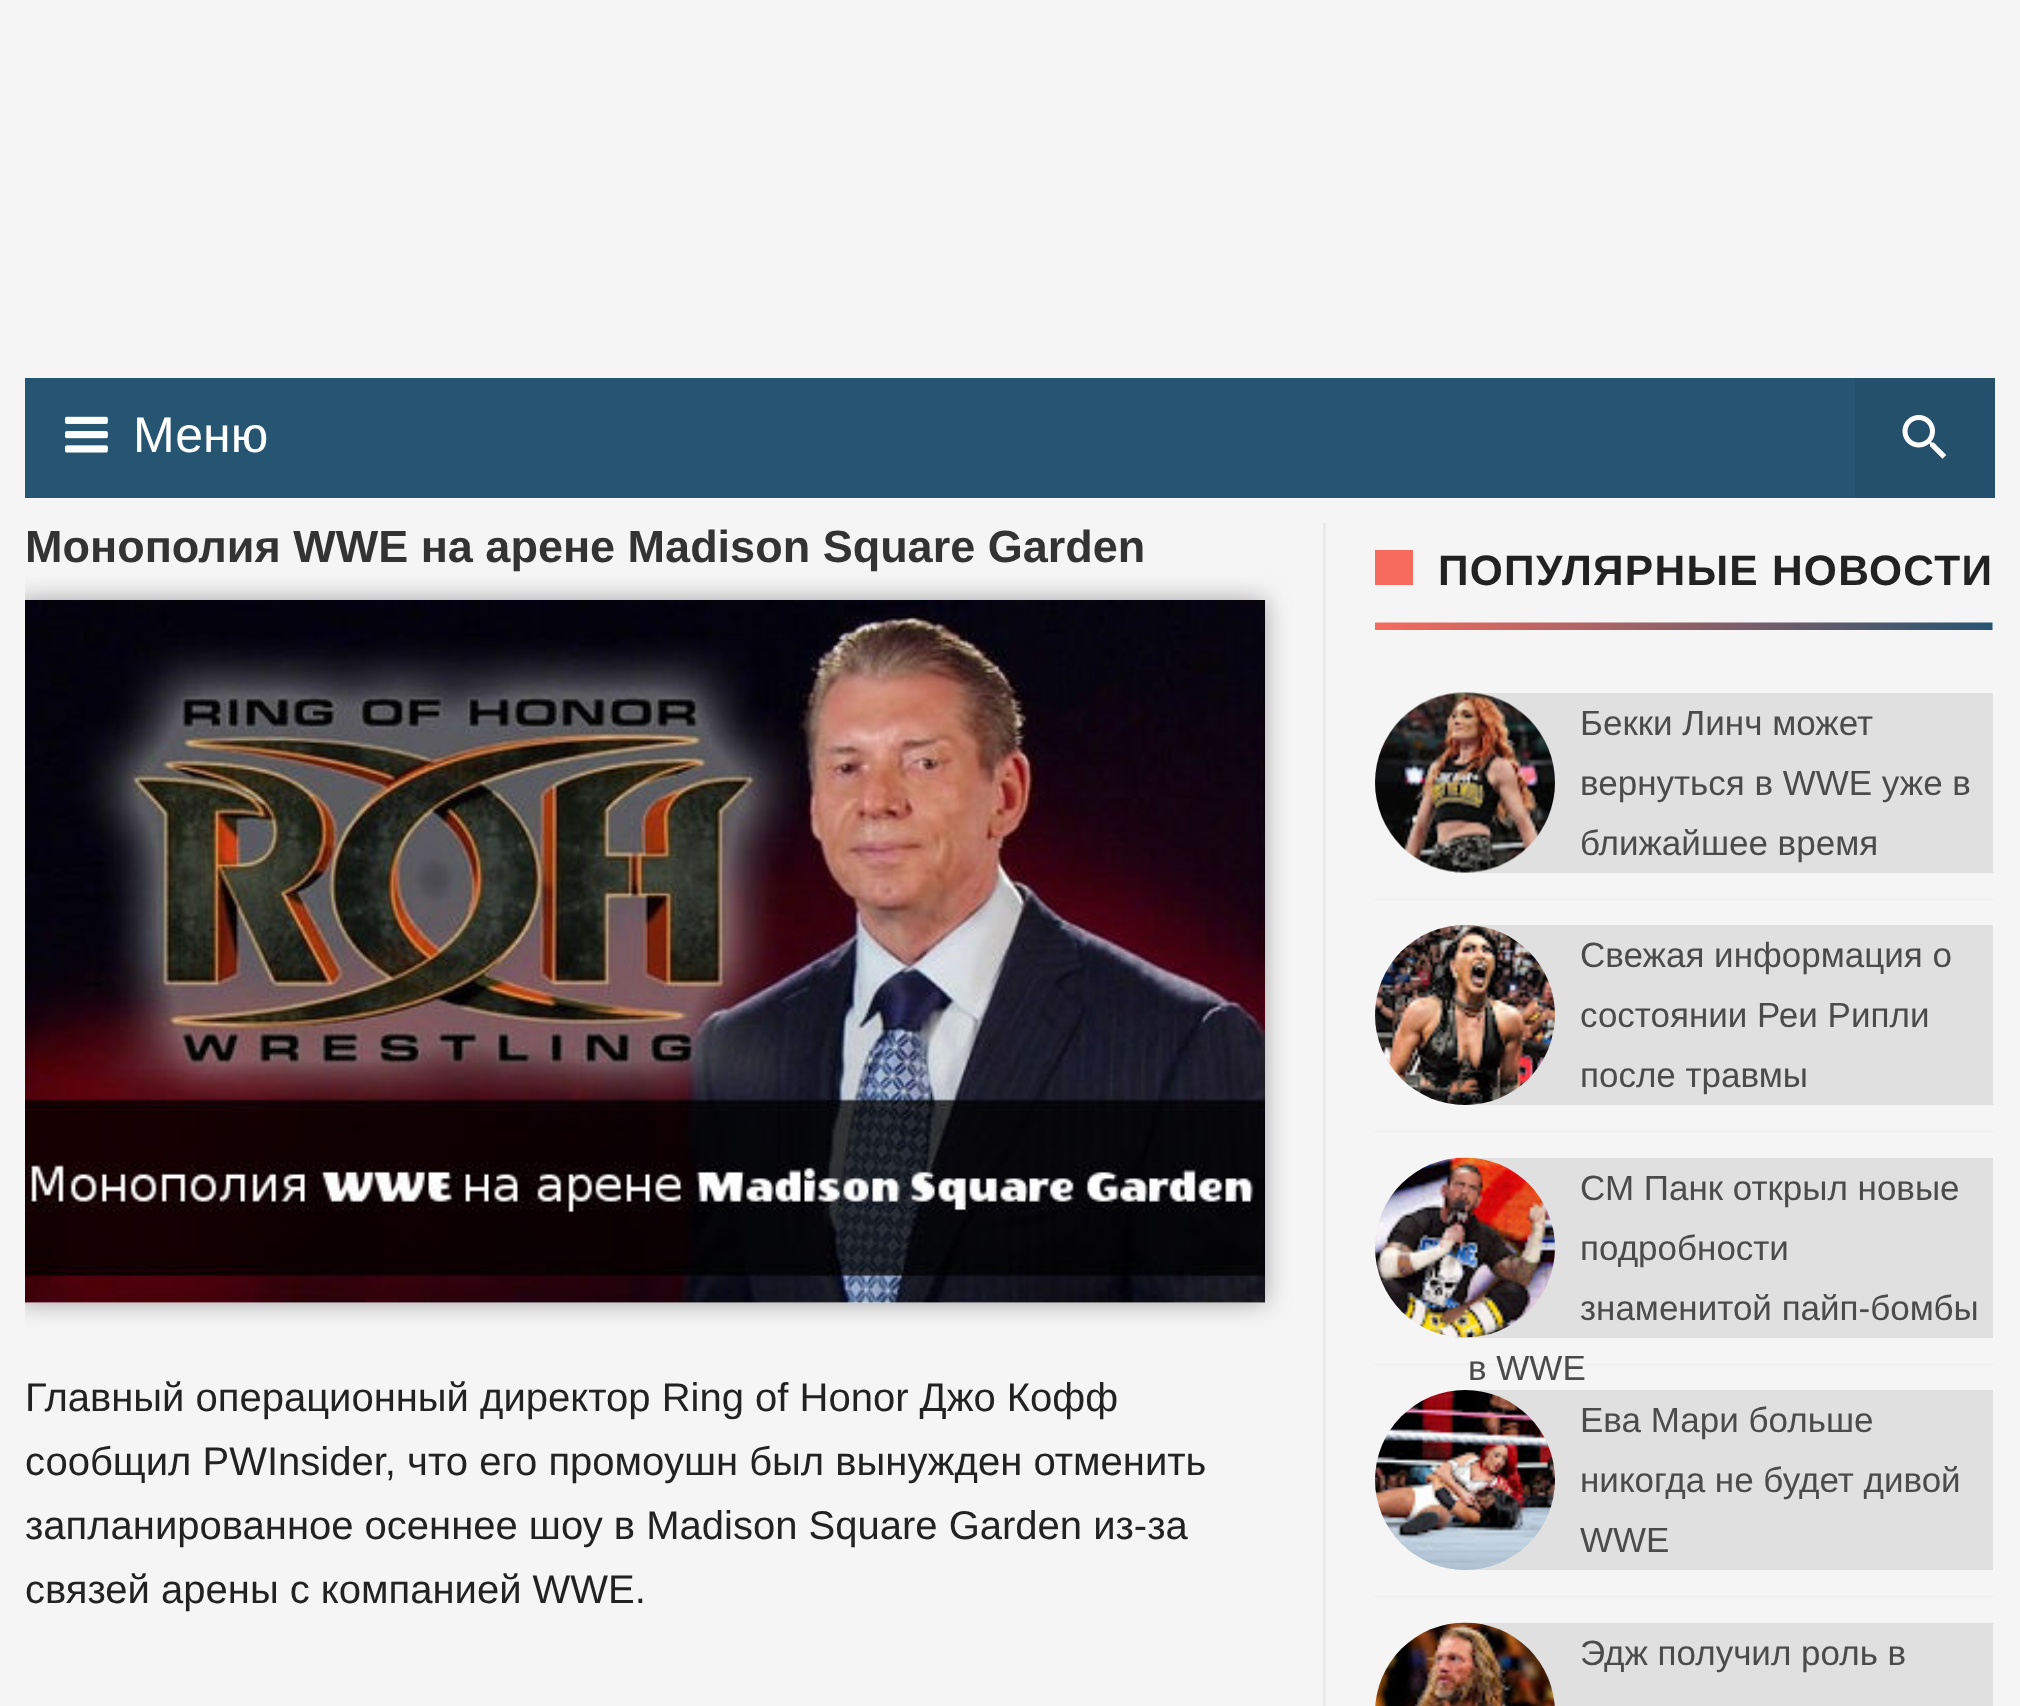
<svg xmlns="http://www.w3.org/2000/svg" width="2020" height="1706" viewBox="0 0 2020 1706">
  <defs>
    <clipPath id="clip1"><rect x="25" y="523" width="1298" height="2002"/></clipPath>
  </defs>
  <rect width="100%" height="100%" fill="rgb(245,245,245)"/>
  <rect x="25" y="378" width="1830" height="120" fill="rgb(38,85,114)"/>
  <image x="65" y="416" width="43" height="37" href="pic1.png"/>
  <text x="133" y="452" font-family="Liberation Sans" font-size="50" fill="rgb(255,255,255)">Меню</text>
  <rect x="1855" y="378" width="140" height="120" fill="rgb(36,80,107)"/>
  <image x="1902" y="415" width="45" height="44" href="pic2.png"/>
  <rect x="1323" y="523" width="3" height="1183" fill="rgb(233,233,233)"/>
  <text x="25" y="562" font-family="Liberation Sans" font-size="45" font-weight="bold" fill="rgb(51,51,51)">Монополия WWE на арене Madison Square Garden</text>
  <g clip-path="url(#clip1)">
    <rect x="18" y="600" width="1247" height="703" fill="rgba(83,83,83,0.5)" filter="blur(12.5px)"/>
  </g>
  <rect x="25" y="1302" width="1240" height="1" fill="rgb(245,245,245)"/>
  <image x="25" y="600" width="1240" height="703" href="pic3.png"/>
  <g font-family="Liberation Sans" font-size="40" fill="rgb(34,34,34)">
    <text>
      <tspan x="25" y="1411">Главный операционный директор Ring of Honor Джо Кофф</tspan>
      <tspan x="25" y="1475">сообщил PWInsider, что его промоушн был вынужден отменить</tspan>
      <tspan x="25" y="1539">запланированное осеннее шоу в Madison Square Garden из-за</tspan>
      <tspan x="25" y="1603">связей арены с компанией WWE.</tspan>
    </text>
  </g>
  <image x="1375" y="622" width="618" height="8" href="pic4.png"/>
  <rect x="1375" y="550" width="38" height="35" fill="rgb(246,107,93)"/>
  <text x="1438" y="585" font-family="Liberation Sans" font-size="42.5" font-weight="bold" letter-spacing="1.25" fill="rgb(34,34,34)">ПОПУЛЯРНЫЕ НОВОСТИ</text>
  <rect x="1375" y="898" width="618" height="3" fill="rgb(241,241,241)"/>
  <rect x="1455" y="693" width="538" height="180" fill="rgb(224,224,224)"/>
  <image x="1375" y="692" width="180" height="181" href="pic5.png"/>
  <g font-family="Liberation Sans" font-size="35" fill="rgb(75,75,75)">
    <text>
      <tspan x="1580" y="735">Бекки Линч может</tspan>
      <tspan x="1580" y="795">вернуться в WWE уже в</tspan>
      <tspan x="1580" y="855">ближайшее время</tspan>
    </text>
  </g>
  <rect x="1375" y="1130" width="618" height="3" fill="rgb(241,241,241)"/>
  <rect x="1455" y="925" width="538" height="180" fill="rgb(224,224,224)"/>
  <image x="1375" y="925" width="180" height="180" href="pic6.png"/>
  <g font-family="Liberation Sans" font-size="35" fill="rgb(75,75,75)">
    <text>
      <tspan x="1580" y="967">Свежая информация о</tspan>
      <tspan x="1580" y="1027">состоянии Реи Рипли</tspan>
      <tspan x="1580" y="1087">после травмы</tspan>
    </text>
  </g>
  <rect x="1375" y="1363" width="618" height="3" fill="rgb(241,241,241)"/>
  <rect x="1455" y="1158" width="538" height="180" fill="rgb(224,224,224)"/>
  <image x="1375" y="1157" width="180" height="181" href="pic7.png"/>
  <g font-family="Liberation Sans" font-size="35" fill="rgb(75,75,75)">
    <text>
      <tspan x="1580" y="1200">СМ Панк открыл новые</tspan>
      <tspan x="1580" y="1260">подробности</tspan>
      <tspan x="1580" y="1320">знаменитой пайп-бомбы</tspan>
    </text>
    <text x="1468" y="1380">в WWE</text>
  </g>
  <rect x="1375" y="1595" width="618" height="3" fill="rgb(241,241,241)"/>
  <rect x="1455" y="1390" width="538" height="180" fill="rgb(224,224,224)"/>
  <image x="1375" y="1390" width="180" height="180" href="pic8.png"/>
  <g font-family="Liberation Sans" font-size="35" fill="rgb(75,75,75)">
    <text>
      <tspan x="1580" y="1432">Ева Мари больше</tspan>
      <tspan x="1580" y="1492">никогда не будет дивой</tspan>
      <tspan x="1580" y="1552">WWE</tspan>
    </text>
  </g>
  <rect x="1455" y="1623" width="538" height="83" fill="rgb(224,224,224)"/>
  <image x="1375" y="1622" width="180" height="84" href="pic9.png"/>
  <text x="1580" y="1665" font-family="Liberation Sans" font-size="35" fill="rgb(75,75,75)">Эдж получил роль в</text>
</svg>
